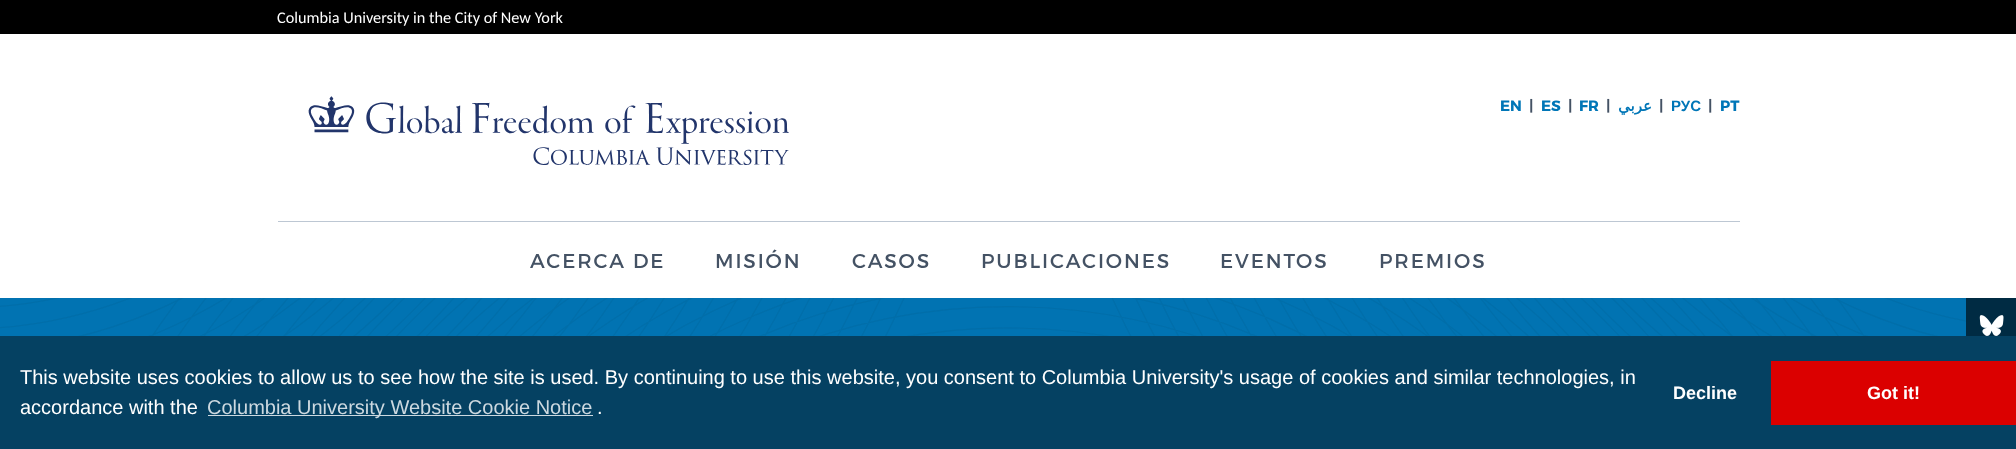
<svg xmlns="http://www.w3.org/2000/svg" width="2016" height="449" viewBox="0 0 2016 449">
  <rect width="100%" height="100%" fill="rgb(0,0,0)"/>
  <text x="277" y="23" font-family="Carlito" font-size="16.25" fill="rgb(255,255,255)">Columbia University in the City of New York</text>
  <rect x="0" y="34" width="2016" height="264" fill="rgb(255,255,255)"/>
  <image x="308" y="96" width="481" height="69" href="pic1.png"/>
  <text x="1500" y="111" font-family="Montserrat" font-size="15" font-weight="bold" fill="rgb(0,118,183)">EN</text>
  <text x="1529" y="111" font-family="Montserrat" font-size="15" font-weight="bold" fill="rgb(68,82,100)">|</text>
  <text x="1541" y="111" font-family="Montserrat" font-size="15" font-weight="bold" fill="rgb(0,118,183)">ES</text>
  <text x="1568" y="111" font-family="Montserrat" font-size="15" font-weight="bold" fill="rgb(68,82,100)">|</text>
  <text x="1579" y="111" font-family="Montserrat" font-size="15" font-weight="bold" fill="rgb(0,118,183)">FR</text>
  <text x="1606" y="111" font-family="Montserrat" font-size="15" font-weight="bold" fill="rgb(68,82,100)">|</text>
  <text x="1652" y="111" font-family="DejaVu Sans" font-size="15" font-weight="bold" direction="rtl" fill="rgb(0,118,183)">عربي</text>
  <text x="1659" y="111" font-family="Montserrat" font-size="15" font-weight="bold" fill="rgb(68,82,100)">|</text>
  <text x="1671" y="111" font-family="Liberation Sans" font-size="15" font-weight="bold" fill="rgb(0,118,183)">РУС</text>
  <text x="1708" y="111" font-family="Montserrat" font-size="15" font-weight="bold" fill="rgb(68,82,100)">|</text>
  <text x="1720" y="111" font-family="Montserrat" font-size="15" font-weight="bold" fill="rgb(0,118,183)">PT</text>
  <rect x="278" y="221" width="1462" height="1" fill="rgb(189,199,211)"/>
  <g font-family="Montserrat" font-size="20" letter-spacing="1.9" fill="rgb(68,82,100)">
    <text x="530" y="268">ACERCA DE</text>
    <text x="715" y="268">MISIÓN</text>
    <text x="852" y="268">CASOS</text>
    <text x="981" y="268">PUBLICACIONES</text>
    <text x="1220" y="268">EVENTOS</text>
    <text x="1379" y="268">PREMIOS</text>
  </g>
  <rect x="0" y="298" width="1966" height="38" fill="rgb(1,115,178)"/>
  <image x="0" y="298" width="1966" height="38" href="pic2.png"/>
  <rect x="1966" y="298" width="50" height="38" fill="rgb(0,43,67)"/>
  <image x="1979" y="315" width="25" height="21" href="pic3.png"/>
  <rect x="0" y="336" width="2016" height="113" fill="rgb(5,65,98)"/>
  <g font-family="Liberation Sans" font-size="20" fill="rgb(255,255,255)">
    <text>
      <tspan x="20" y="384">This website uses cookies to allow us to see how the site is used. By continuing to use this website, you consent to Columbia University's usage of cookies and similar technologies, in</tspan>
      <tspan x="20" y="414">accordance with the</tspan>
    </text>
  </g>
  <rect x="208" y="415" width="385" height="1" fill="rgb(205,217,224)"/>
  <text x="207" y="414" font-family="Liberation Sans" font-size="20" fill="rgb(205,217,224)">Columbia University Website Cookie Notice</text>
  <text x="597" y="414" font-family="Liberation Sans" font-size="20" fill="rgb(255,255,255)">.</text>
  <text x="1673" y="399" font-family="Liberation Sans" font-size="18" font-weight="bold" fill="rgb(255,255,255)">Decline</text>
  <rect x="1771" y="361" width="245" height="64" fill="rgb(219,0,0)"/>
  <text x="1867" y="399" font-family="Liberation Sans" font-size="18" font-weight="bold" fill="rgb(255,255,255)">Got it!</text>
</svg>
